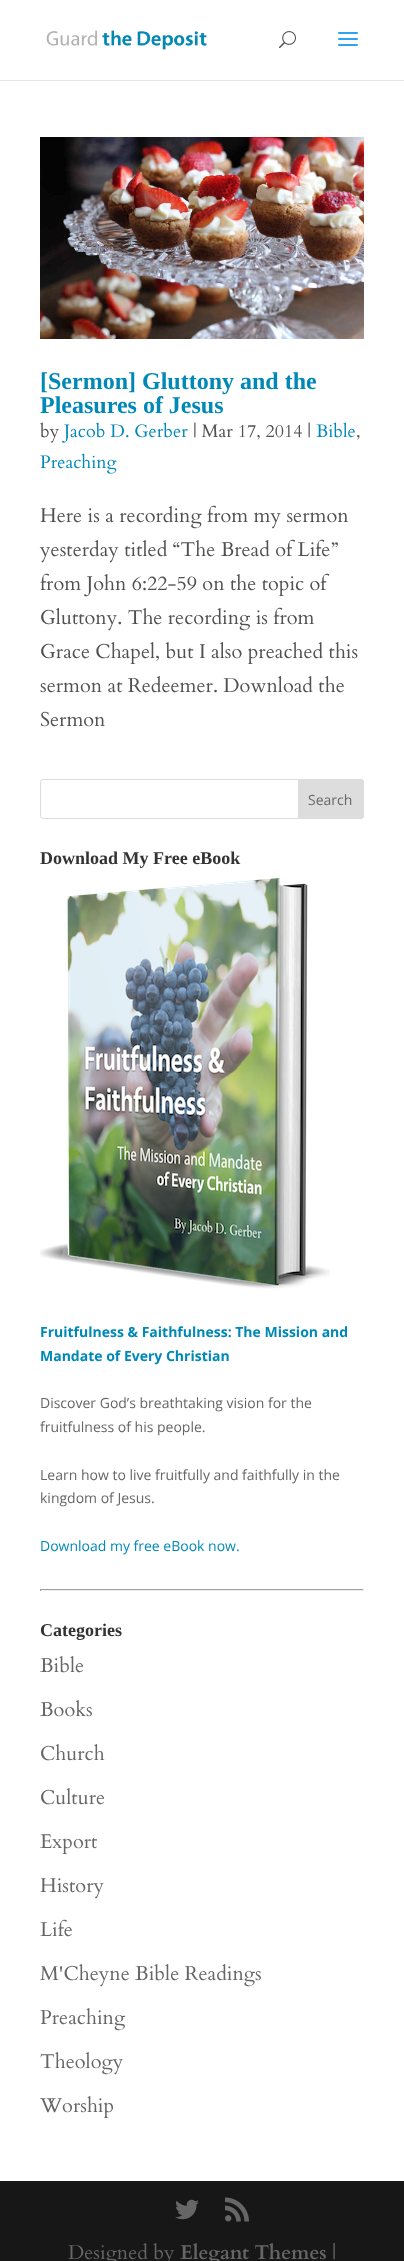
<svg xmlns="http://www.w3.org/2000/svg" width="404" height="2261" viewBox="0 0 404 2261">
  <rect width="100%" height="100%" fill="rgb(255,255,255)"/>
  <rect x="0" y="80" width="404" height="1" fill="rgb(230,230,230)"/>
  <image x="46" y="30" width="161" height="20" href="pic1.png"/>
  <image x="279" y="31" width="17" height="18" href="pic2.png"/>
  <image x="338" y="32" width="20" height="14" href="pic3.png"/>
  <image x="40" y="137" width="324" height="202" href="pic4.png"/>
  <g font-family="Liberation Serif" font-size="24" font-weight="bold" fill="rgb(0,137,183)">
    <text>
      <tspan x="40" y="389">[Sermon] Gluttony and the</tspan>
      <tspan x="40" y="413">Pleasures of Jesus</tspan>
    </text>
  </g>
  <text x="40" y="437" font-family="Cardo" font-size="18" fill="rgb(81,81,81)">by</text>
  <text x="64" y="437" font-family="Cardo" font-size="18" fill="rgb(0,137,183)">Jacob D. Gerber</text>
  <text x="193" y="437" font-family="Cardo" font-size="18" fill="rgb(81,81,81)">| Mar 17, 2014 |</text>
  <text x="316" y="437" font-family="Cardo" font-size="18" fill="rgb(0,137,183)">Bible</text>
  <text x="356" y="437" font-family="Cardo" font-size="18" fill="rgb(81,81,81)">,</text>
  <text x="40" y="468" font-family="Cardo" font-size="18" fill="rgb(0,137,183)">Preaching</text>
  <g font-family="Cardo" font-size="20" fill="rgb(81,81,81)">
    <text>
      <tspan x="40" y="522">Here is a recording from my sermon</tspan>
      <tspan x="40" y="556">yesterday titled “The Bread of Life”</tspan>
      <tspan x="40" y="590">from John 6:22-59 on the topic of</tspan>
      <tspan x="40" y="624">Gluttony. The recording is from</tspan>
      <tspan x="40" y="658">Grace Chapel, but I also preached this</tspan>
      <tspan x="40" y="692">sermon at Redeemer. Download the</tspan>
      <tspan x="40" y="726">Sermon</tspan>
    </text>
  </g>
  <rect x="40.5" y="779.5" width="323" height="39" rx="2.5" fill="none" stroke="rgb(221,221,221)"/>
  <path d="M298.5 779.5H361C362.5 779.5 363.5 780.5 363.5 782V816C363.5 817.5 362.5 818.5 361 818.5H298.5Z" fill="rgb(221,221,221)" stroke="rgb(221,221,221)"/>
  <text x="308" y="805" font-family="Open Sans" font-size="14" fill="rgb(102,102,102)">Search</text>
  <text x="40" y="864" font-family="Liberation Serif" font-size="18" font-weight="bold" fill="rgb(51,51,51)">Download My Free eBook</text>
  <image x="40" y="878" width="290" height="411" href="pic5.png"/>
  <g font-family="Open Sans" font-size="14" font-weight="bold" fill="rgb(0,137,183)">
    <text>
      <tspan x="40" y="1337">Fruitfulness &amp; Faithfulness: The Mission and</tspan>
      <tspan x="40" y="1361">Mandate of Every Christian</tspan>
    </text>
  </g>
  <g font-family="Open Sans" font-size="14" fill="rgb(102,102,102)">
    <text>
      <tspan x="40" y="1408">Discover God’s breathtaking vision for the</tspan>
      <tspan x="40" y="1432">fruitfulness of his people.</tspan>
    </text>
    <text>
      <tspan x="40" y="1480">Learn how to live fruitfully and faithfully in the</tspan>
      <tspan x="40" y="1503">kingdom of Jesus.</tspan>
    </text>
  </g>
  <text x="40" y="1551" font-family="Open Sans" font-size="14" fill="rgb(0,137,183)">Download my free eBook now.</text>
  <rect x="40" y="1589" width="324" height="1" fill="rgb(159,159,159)"/>
  <rect x="363" y="1589" width="1" height="2" fill="rgb(238,238,238)"/>
  <rect x="40" y="1590" width="324" height="1" fill="rgb(238,238,238)"/>
  <rect x="40" y="1589" width="1" height="2" fill="rgb(159,159,159)"/>
  <text x="40" y="1636" font-family="Liberation Serif" font-size="18" font-weight="bold" fill="rgb(51,51,51)">Categories</text>
  <g font-family="Cardo" font-size="20" fill="rgb(102,102,102)">
    <text x="40" y="1672">Bible</text>
    <text x="40" y="1716">Books</text>
    <text x="40" y="1760">Church</text>
    <text x="40" y="1804">Culture</text>
    <text x="40" y="1848">Export</text>
    <text x="40" y="1892">History</text>
    <text x="40" y="1936">Life</text>
    <text x="40" y="1980">M'Cheyne Bible Readings</text>
    <text x="40" y="2024">Preaching</text>
    <text x="40" y="2068">Theology</text>
    <text x="40" y="2112">Worship</text>
  </g>
  <rect x="0" y="2181" width="404" height="80" fill="rgb(23,23,23)"/>
  <image x="175" y="2199" width="24" height="21" href="pic6.png"/>
  <image x="225" y="2197" width="24" height="25" href="pic7.png"/>
  <text x="68" y="2259" font-family="Cardo" font-size="20" fill="rgb(102,102,102)">Designed by</text>
  <text x="180" y="2259" font-family="Cardo" font-size="20" font-weight="bold" fill="rgb(102,102,102)">Elegant Themes</text>
  <text x="332" y="2259" font-family="Cardo" font-size="20" fill="rgb(102,102,102)">|</text>
</svg>
